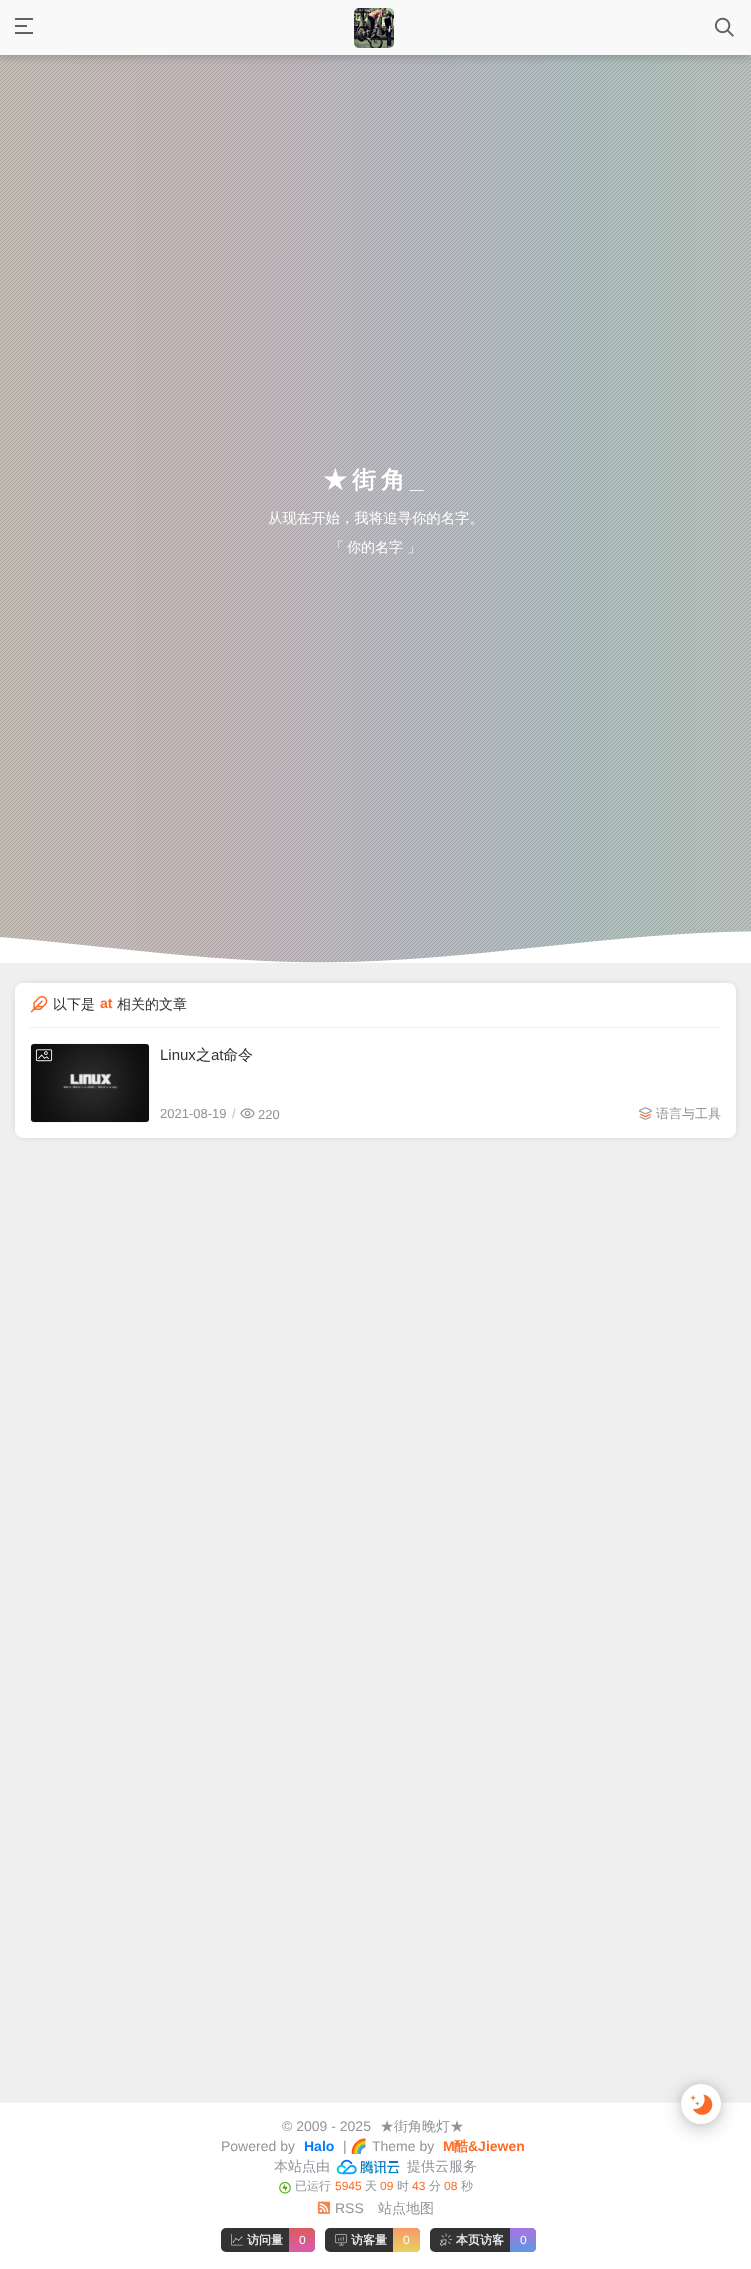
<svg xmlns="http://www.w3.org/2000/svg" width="751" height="2269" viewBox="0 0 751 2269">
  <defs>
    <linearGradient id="g1" gradientUnits="userSpaceOnUse" x1="0" y1="509" x2="751" y2="509"><stop offset="0" stop-color="rgb(241,231,221)"/><stop offset="0.15" stop-color="rgb(240,227,224)"/><stop offset="0.3" stop-color="rgb(240,224,228)"/><stop offset="0.44" stop-color="rgb(232,226,233)"/><stop offset="0.58" stop-color="rgb(224,227,234)"/><stop offset="0.72" stop-color="rgb(218,231,233)"/><stop offset="0.86" stop-color="rgb(217,234,231)"/><stop offset="1" stop-color="rgb(227,235,229)"/></linearGradient>
    <linearGradient id="g2" gradientUnits="userSpaceOnUse" x1="302" y1="2252" x2="302" y2="2228"><stop offset="0" stop-color="rgb(217,92,175)"/><stop offset="1" stop-color="rgb(217,92,94)"/></linearGradient>
    <linearGradient id="g3" gradientUnits="userSpaceOnUse" x1="407" y1="2252" x2="407" y2="2228"><stop offset="0" stop-color="rgb(232,209,97)"/><stop offset="1" stop-color="rgb(247,153,105)"/></linearGradient>
    <linearGradient id="g4" gradientUnits="userSpaceOnUse" x1="523" y1="2252" x2="523" y2="2228"><stop offset="0" stop-color="rgb(94,152,225)"/><stop offset="1" stop-color="rgb(171,114,226)"/></linearGradient>
  </defs>
  <rect width="100%" height="100%" fill="rgb(239,239,239)"/>
  <rect x="0" y="55" width="751" height="908" fill="url(#g1)"/>
  <image x="0" y="55" width="751" height="908" href="pic4.png"/>
  <rect x="0" y="2" width="751" height="55" fill="rgba(0,0,0,0.2)" filter="blur(5px)"/>
  <rect x="0" y="0" width="751" height="55" fill="rgb(249,249,249)"/>
  <image x="15" y="18" width="18" height="16" href="pic1.png"/>
  <image x="354" y="8" width="40" height="40" href="pic2.png"/>
  <image x="714" y="17" width="20" height="20" href="pic3.png"/>
  <text x="323" y="488" font-family="WenQuanYi Zen Hei" font-size="24" font-weight="bold" letter-spacing="5" fill="rgb(255,255,255)">★街角</text>
  <text x="410" y="488" font-family="Liberation Sans" font-size="24" font-weight="bold" letter-spacing="5" fill="rgb(255,255,255)">_</text>
  <text x="268" y="523" font-family="WenQuanYi Zen Hei" font-size="14.4" font-weight="500" fill="rgb(255,255,255)">从现在开始，我将追寻你的名字。</text>
  <g font-family="WenQuanYi Zen Hei" font-size="14" font-weight="500" fill="rgb(255,255,255)">
    <text x="330" y="552">「</text>
    <text x="347" y="552">你的名字</text>
    <text x="407" y="552">」</text>
  </g>
  <image x="0" y="931" width="751" height="32" href="pic5.png"/>
  <rect x="20" y="988" width="711" height="145" rx="3" fill="rgb(148,148,148)" filter="blur(5px)"/>
  <rect x="15" y="983" width="721" height="155" rx="8" fill="rgb(255,255,255)"/>
  <rect x="30" y="1027" width="691" height="1" fill="rgb(235,238,245)"/>
  <image x="30" y="996" width="18" height="17" href="pic6.png"/>
  <text x="53" y="1009" font-family="WenQuanYi Zen Hei" font-size="14" font-weight="500" fill="rgb(48,49,51)">以下是</text>
  <text x="100" y="1008" font-family="Liberation Sans" font-size="14" font-weight="bold" fill="rgb(251,108,40)">at</text>
  <text x="117" y="1009" font-family="WenQuanYi Zen Hei" font-size="14" font-weight="500" fill="rgb(48,49,51)">相关的文章</text>
  <rect x="30.5" y="1043.5" width="119" height="79" rx="3.5" fill="none" stroke="rgb(242,246,252)"/>
  <image x="31" y="1044" width="118" height="78" href="pic7.png"/>
  <image x="35" y="1049" width="18" height="13" href="pic8.png"/>
  <text x="160" y="1060" font-family="Liberation Sans" font-size="15" fill="rgb(48,49,51)">Linux</text>
  <text x="196" y="1060" font-family="WenQuanYi Zen Hei" font-size="15" font-weight="500" fill="rgb(48,49,51)">之</text>
  <text x="211" y="1060" font-family="Liberation Sans" font-size="15" fill="rgb(48,49,51)">at</text>
  <text x="223" y="1060" font-family="WenQuanYi Zen Hei" font-size="15" font-weight="500" fill="rgb(48,49,51)">命令</text>
  <text x="160" y="1118" font-family="Liberation Sans" font-size="13" fill="rgb(144,147,153)">2021-08-19</text>
  <text x="232" y="1118" font-family="Liberation Sans" font-size="13" fill="rgb(192,196,204)">/</text>
  <image x="240" y="1108" width="15" height="11" href="pic9.png"/>
  <text x="258" y="1119" font-family="Liberation Sans" font-size="13" fill="rgb(144,147,153)">220</text>
  <image x="639" y="1107" width="13" height="13" href="pic10.png"/>
  <text x="656" y="1118" font-family="WenQuanYi Zen Hei" font-size="13" font-weight="500" fill="rgb(144,147,153)">语言与工具</text>
  <rect x="0" y="2103" width="751" height="166" fill="rgb(255,255,255)"/>
  <rect x="0" y="2102" width="751" height="1" fill="rgb(242,246,252)"/>
  <text x="282" y="2131" font-family="Liberation Sans" font-size="14" fill="rgb(144,147,153)">© 2009 - 2025</text>
  <text x="380" y="2131" font-family="WenQuanYi Zen Hei" font-size="14" font-weight="500" fill="rgb(144,147,153)">★街角晚灯★</text>
  <text x="221" y="2151" font-family="Liberation Sans" font-size="14" fill="rgb(144,147,153)">Powered by</text>
  <text x="304" y="2151" font-family="Liberation Sans" font-size="14" font-weight="bold" fill="rgb(0,124,255)">Halo</text>
  <text x="343" y="2151" font-family="Liberation Sans" font-size="14" fill="rgb(144,147,153)">|</text>
  <text x="350" y="2151" font-family="Noto Color Emoji" font-size="14" fill="rgb(144,147,153)">🌈</text>
  <text x="372" y="2151" font-family="Liberation Sans" font-size="14" fill="rgb(144,147,153)">Theme by</text>
  <text x="443" y="2151" font-family="Liberation Sans" font-size="14" font-weight="bold" fill="rgb(251,108,40)">M</text>
  <text x="454" y="2151" font-family="WenQuanYi Zen Hei" font-size="14" font-weight="bold" fill="rgb(251,108,40)">酷</text>
  <text x="468" y="2151" font-family="Liberation Sans" font-size="14" font-weight="bold" fill="rgb(251,108,40)">&amp;Jiewen</text>
  <text x="274" y="2171" font-family="WenQuanYi Zen Hei" font-size="14" font-weight="500" fill="rgb(144,147,153)">本站点由</text>
  <image x="336" y="2159" width="64" height="16" href="pic11.png"/>
  <text x="407" y="2171" font-family="WenQuanYi Zen Hei" font-size="14" font-weight="500" fill="rgb(144,147,153)">提供云服务</text>
  <image x="279" y="2181" width="12" height="13" href="pic12.png"/>
  <text x="295" y="2190" font-family="WenQuanYi Zen Hei" font-size="12" font-weight="500" fill="rgb(144,147,153)">已运行</text>
  <text x="335" y="2190" font-family="Liberation Sans" font-size="12" fill="rgb(251,108,40)">5945</text>
  <text x="365" y="2190" font-family="WenQuanYi Zen Hei" font-size="12" font-weight="500" fill="rgb(144,147,153)">天</text>
  <text x="380" y="2190" font-family="Liberation Sans" font-size="12" fill="rgb(251,108,40)">09</text>
  <text x="397" y="2190" font-family="WenQuanYi Zen Hei" font-size="12" font-weight="500" fill="rgb(144,147,153)">时</text>
  <text x="412" y="2190" font-family="Liberation Sans" font-size="12" fill="rgb(251,108,40)">43</text>
  <text x="429" y="2190" font-family="WenQuanYi Zen Hei" font-size="12" font-weight="500" fill="rgb(144,147,153)">分</text>
  <text x="444" y="2190" font-family="Liberation Sans" font-size="12" fill="rgb(251,108,40)">08</text>
  <text x="461" y="2190" font-family="WenQuanYi Zen Hei" font-size="12" font-weight="500" fill="rgb(144,147,153)">秒</text>
  <image x="317" y="2201" width="14" height="13" href="pic13.png"/>
  <text x="335" y="2213" font-family="Liberation Sans" font-size="14" fill="rgb(144,147,153)">RSS</text>
  <text x="378" y="2213" font-family="WenQuanYi Zen Hei" font-size="14" font-weight="500" fill="rgb(144,147,153)">站点地图</text>
  <rect x="221" y="2228" width="94" height="24" rx="5" fill="rgb(51,51,51)"/>
  <image x="231" y="2234" width="12" height="12" href="pic14.png"/>
  <text x="247" y="2244" font-family="WenQuanYi Zen Hei" font-size="12" font-weight="bold" fill="rgb(233,236,241)">访问量</text>
  <path d="M289 2228H310C313 2228 315 2230 315 2233V2247C315 2250 313 2252 310 2252H289Z" fill="url(#g2)"/>
  <text x="299" y="2244" font-family="Liberation Sans" font-size="12" fill="rgb(255,255,255)">0</text>
  <rect x="325" y="2228" width="95" height="24" rx="5" fill="rgb(51,51,51)"/>
  <image x="334" y="2234" width="13" height="12" href="pic15.png"/>
  <text x="351" y="2244" font-family="WenQuanYi Zen Hei" font-size="12" font-weight="bold" fill="rgb(233,236,241)">访客量</text>
  <path d="M393 2228H415C418 2228 420 2230 420 2233V2247C420 2250 418 2252 415 2252H393Z" fill="url(#g3)"/>
  <text x="403" y="2244" font-family="Liberation Sans" font-size="12" fill="rgb(255,255,255)">0</text>
  <rect x="430" y="2228" width="106" height="24" rx="5" fill="rgb(51,51,51)"/>
  <image x="439" y="2233" width="14" height="13" href="pic16.png"/>
  <text x="456" y="2244" font-family="WenQuanYi Zen Hei" font-size="12" font-weight="bold" fill="rgb(233,236,241)">本页访客</text>
  <path d="M510 2228H531C534 2228 536 2230 536 2233V2247C536 2250 534 2252 531 2252H510Z" fill="url(#g4)"/>
  <text x="520" y="2244" font-family="Liberation Sans" font-size="12" fill="rgb(255,255,255)">0</text>
  <rect x="681" y="2089" width="40" height="40" rx="20" fill="rgba(0,0,0,0.2)" filter="blur(10px)"/>
  <rect x="681" y="2084" width="40" height="40" rx="20" fill="rgba(0,0,0,0.1)" filter="blur(5px)"/>
  <circle cx="701" cy="2104" r="20" fill="rgb(255,255,255)"/>
  <image x="690" y="2094" width="23" height="21" href="pic17.png"/>
</svg>
